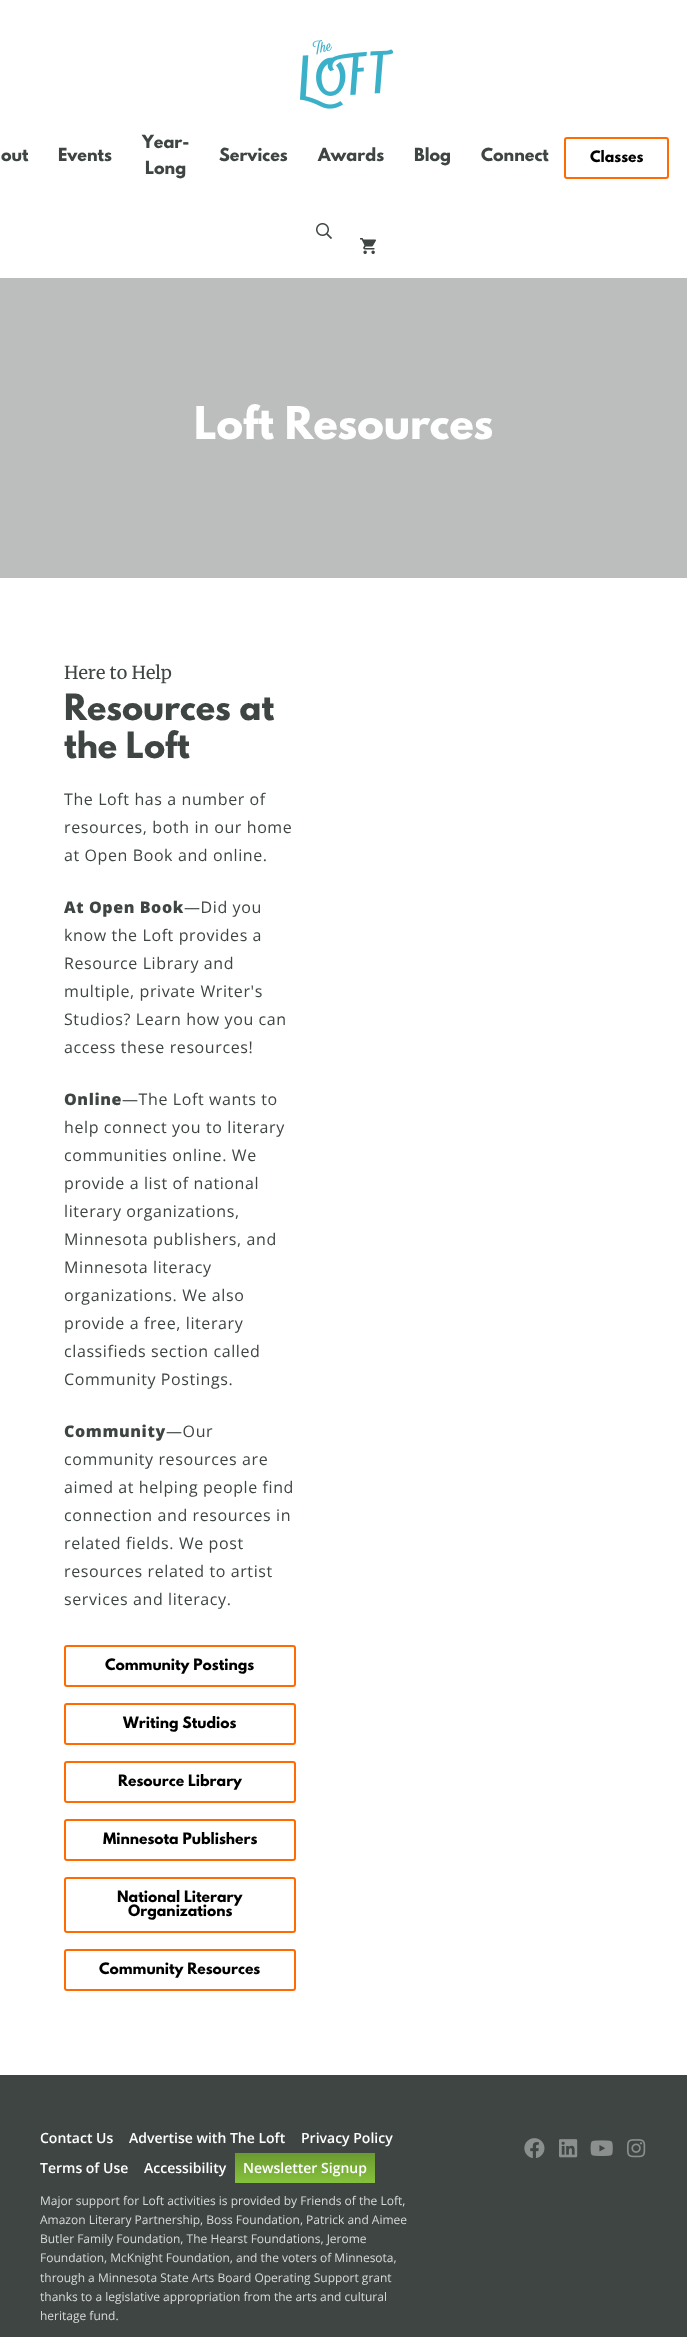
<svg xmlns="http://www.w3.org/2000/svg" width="687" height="2337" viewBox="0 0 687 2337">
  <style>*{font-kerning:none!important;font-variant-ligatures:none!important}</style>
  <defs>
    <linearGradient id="g1" gradientUnits="userSpaceOnUse" x1="305" y1="2153" x2="305" y2="2183"><stop offset="0" stop-color="rgb(107,154,49)"/><stop offset="1" stop-color="rgb(134,193,61)"/></linearGradient>
  </defs>
  <rect width="100%" height="100%" fill="rgb(62,69,67)"/>
  <rect x="0" y="0" width="687" height="278" fill="rgb(255,255,255)"/>
  <image x="299" y="40" width="94" height="69" href="pic1.png"/>
  <g font-family="League Spartan" font-size="16" font-weight="bold" fill="rgb(62,69,67)">
    <text x="1" y="161">out</text>
    <text x="58" y="161">Events</text>
    <text x="142" y="148">Year-</text>
    <text x="145" y="174">Long</text>
    <text x="219" y="161">Services</text>
    <text x="318" y="161">Awards</text>
    <text x="414" y="161">Blog</text>
    <text x="481" y="161">Connect</text>
  </g>
  <rect x="565" y="138" width="103" height="40" rx="2" fill="none" stroke="rgb(255,107,0)" stroke-width="2"/>
  <text x="590" y="162" font-family="League Spartan" font-size="14" font-weight="bold" fill="rgb(0,0,0)">Classes</text>
  <image x="316" y="223" width="16" height="16" href="pic2.png"/>
  <text x="360" y="253" font-family="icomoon" font-size="16" fill="rgb(62,69,67)">󡲘</text>
  <rect x="0" y="578" width="687" height="1497" fill="rgb(255,255,255)"/>
  <rect x="0" y="278" width="687" height="300" fill="rgb(188,190,190)"/>
  <text x="194" y="439" font-family="League Spartan" font-size="40" font-weight="bold" fill="rgb(255,255,255)">Loft Resources</text>
  <text x="64" y="679" font-family="Merriweather" font-size="18" fill="rgb(62,69,67)">Here to Help</text>
  <g font-family="League Spartan" font-size="32" font-weight="bold" fill="rgb(62,69,67)">
    <text>
      <tspan x="64" y="720">Resources at</tspan>
      <tspan x="64" y="758">the Loft</tspan>
    </text>
  </g>
  <g font-family="Open Sans" font-size="16" letter-spacing="0.6" fill="rgb(62,69,67)">
    <text>
      <tspan x="64" y="805">The Loft has a number of</tspan>
      <tspan x="64" y="833">resources, both in our home</tspan>
      <tspan x="64" y="861">at Open Book and online.</tspan>
    </text>
  </g>
  <text x="64" y="913" font-family="Open Sans" font-size="16" font-weight="800" letter-spacing="0.6" fill="rgb(62,69,67)">At Open Book</text>
  <g font-family="Open Sans" font-size="16" letter-spacing="0.6" fill="rgb(62,69,67)">
    <text x="184" y="913">—Did you</text>
    <text>
      <tspan x="64" y="941">know the Loft provides a</tspan>
      <tspan x="64" y="969">Resource Library and</tspan>
      <tspan x="64" y="997">multiple, private Writer's</tspan>
      <tspan x="64" y="1025">Studios? Learn how you can</tspan>
      <tspan x="64" y="1053">access these resources!</tspan>
    </text>
  </g>
  <text x="64" y="1105" font-family="Open Sans" font-size="16" font-weight="800" letter-spacing="0.6" fill="rgb(62,69,67)">Online</text>
  <g font-family="Open Sans" font-size="16" letter-spacing="0.6" fill="rgb(62,69,67)">
    <text x="122" y="1105">—The Loft wants to</text>
    <text>
      <tspan x="64" y="1133">help connect you to literary</tspan>
      <tspan x="64" y="1161">communities online. We</tspan>
      <tspan x="64" y="1189">provide a list of national</tspan>
      <tspan x="64" y="1217">literary organizations,</tspan>
      <tspan x="64" y="1245">Minnesota publishers, and</tspan>
      <tspan x="64" y="1273">Minnesota literacy</tspan>
      <tspan x="64" y="1301">organizations. We also</tspan>
      <tspan x="64" y="1329">provide a free, literary</tspan>
      <tspan x="64" y="1357">classifieds section called</tspan>
      <tspan x="64" y="1385">Community Postings.</tspan>
    </text>
  </g>
  <text x="64" y="1437" font-family="Open Sans" font-size="16" font-weight="800" letter-spacing="0.6" fill="rgb(62,69,67)">Community</text>
  <g font-family="Open Sans" font-size="16" letter-spacing="0.6" fill="rgb(62,69,67)">
    <text x="166" y="1437">—Our</text>
    <text>
      <tspan x="64" y="1465">community resources are</tspan>
      <tspan x="64" y="1493">aimed at helping people find</tspan>
      <tspan x="64" y="1521">connection and resources in</tspan>
      <tspan x="64" y="1549">related fields. We post</tspan>
      <tspan x="64" y="1577">resources related to artist</tspan>
      <tspan x="64" y="1605">services and literacy.</tspan>
    </text>
  </g>
  <rect x="65" y="1646" width="230" height="40" rx="2" fill="none" stroke="rgb(255,107,0)" stroke-width="2"/>
  <text x="105" y="1670" font-family="League Spartan" font-size="14" font-weight="bold" fill="rgb(0,0,0)">Community Postings</text>
  <rect x="65" y="1704" width="230" height="40" rx="2" fill="none" stroke="rgb(255,107,0)" stroke-width="2"/>
  <text x="123" y="1728" font-family="League Spartan" font-size="14" font-weight="bold" fill="rgb(0,0,0)">Writing Studios</text>
  <rect x="65" y="1762" width="230" height="40" rx="2" fill="none" stroke="rgb(255,107,0)" stroke-width="2"/>
  <text x="118" y="1786" font-family="League Spartan" font-size="14" font-weight="bold" fill="rgb(0,0,0)">Resource Library</text>
  <rect x="65" y="1820" width="230" height="40" rx="2" fill="none" stroke="rgb(255,107,0)" stroke-width="2"/>
  <text x="103" y="1844" font-family="League Spartan" font-size="14" font-weight="bold" fill="rgb(0,0,0)">Minnesota Publishers</text>
  <rect x="65" y="1878" width="230" height="54" rx="2" fill="none" stroke="rgb(255,107,0)" stroke-width="2"/>
  <g font-family="League Spartan" font-size="14" font-weight="bold" fill="rgb(0,0,0)">
    <text x="117" y="1902">National Literary</text>
    <text x="128" y="1916">Organizations</text>
  </g>
  <rect x="65" y="1950" width="230" height="40" rx="2" fill="none" stroke="rgb(255,107,0)" stroke-width="2"/>
  <text x="99" y="1974" font-family="League Spartan" font-size="14" font-weight="bold" fill="rgb(0,0,0)">Community Resources</text>
  <g font-family="Open Sans" font-size="14" font-weight="600" fill="rgb(255,255,255)">
    <text x="40" y="2143">Contact Us</text>
    <text x="129" y="2143">Advertise with The Loft</text>
    <text x="301" y="2143">Privacy Policy</text>
    <text x="40" y="2173">Terms of Use</text>
    <text x="144" y="2173">Accessibility</text>
  </g>
  <rect x="235" y="2153" width="140" height="30" fill="url(#g1)"/>
  <text x="243" y="2173" font-family="Open Sans" font-size="14" font-weight="600" fill="rgb(255,255,255)">Newsletter Signup</text>
  <g font-family="Open Sans" font-size="12" fill="rgb(216,218,217)">
    <text>
      <tspan x="40" y="2205">Major support for Loft activities is provided by Friends of the Loft,</tspan>
      <tspan x="40" y="2224">Amazon Literary Partnership, Boss Foundation, Patrick and Aimee</tspan>
      <tspan x="40" y="2243">Butler Family Foundation, The Hearst Foundations, Jerome</tspan>
      <tspan x="40" y="2262">Foundation, McKnight Foundation, and the voters of Minnesota,</tspan>
      <tspan x="40" y="2282">through a Minnesota State Arts Board Operating Support grant</tspan>
      <tspan x="40" y="2301">thanks to a legislative appropriation from the arts and cultural</tspan>
      <tspan x="40" y="2320">heritage fund.</tspan>
    </text>
  </g>
  <image x="524" y="2138" width="21" height="20" href="pic3.png"/>
  <image x="559" y="2139" width="19" height="19" href="pic4.png"/>
  <image x="590" y="2140" width="23" height="16" href="pic5.png"/>
  <image x="627" y="2139" width="19" height="19" href="pic6.png"/>
</svg>
